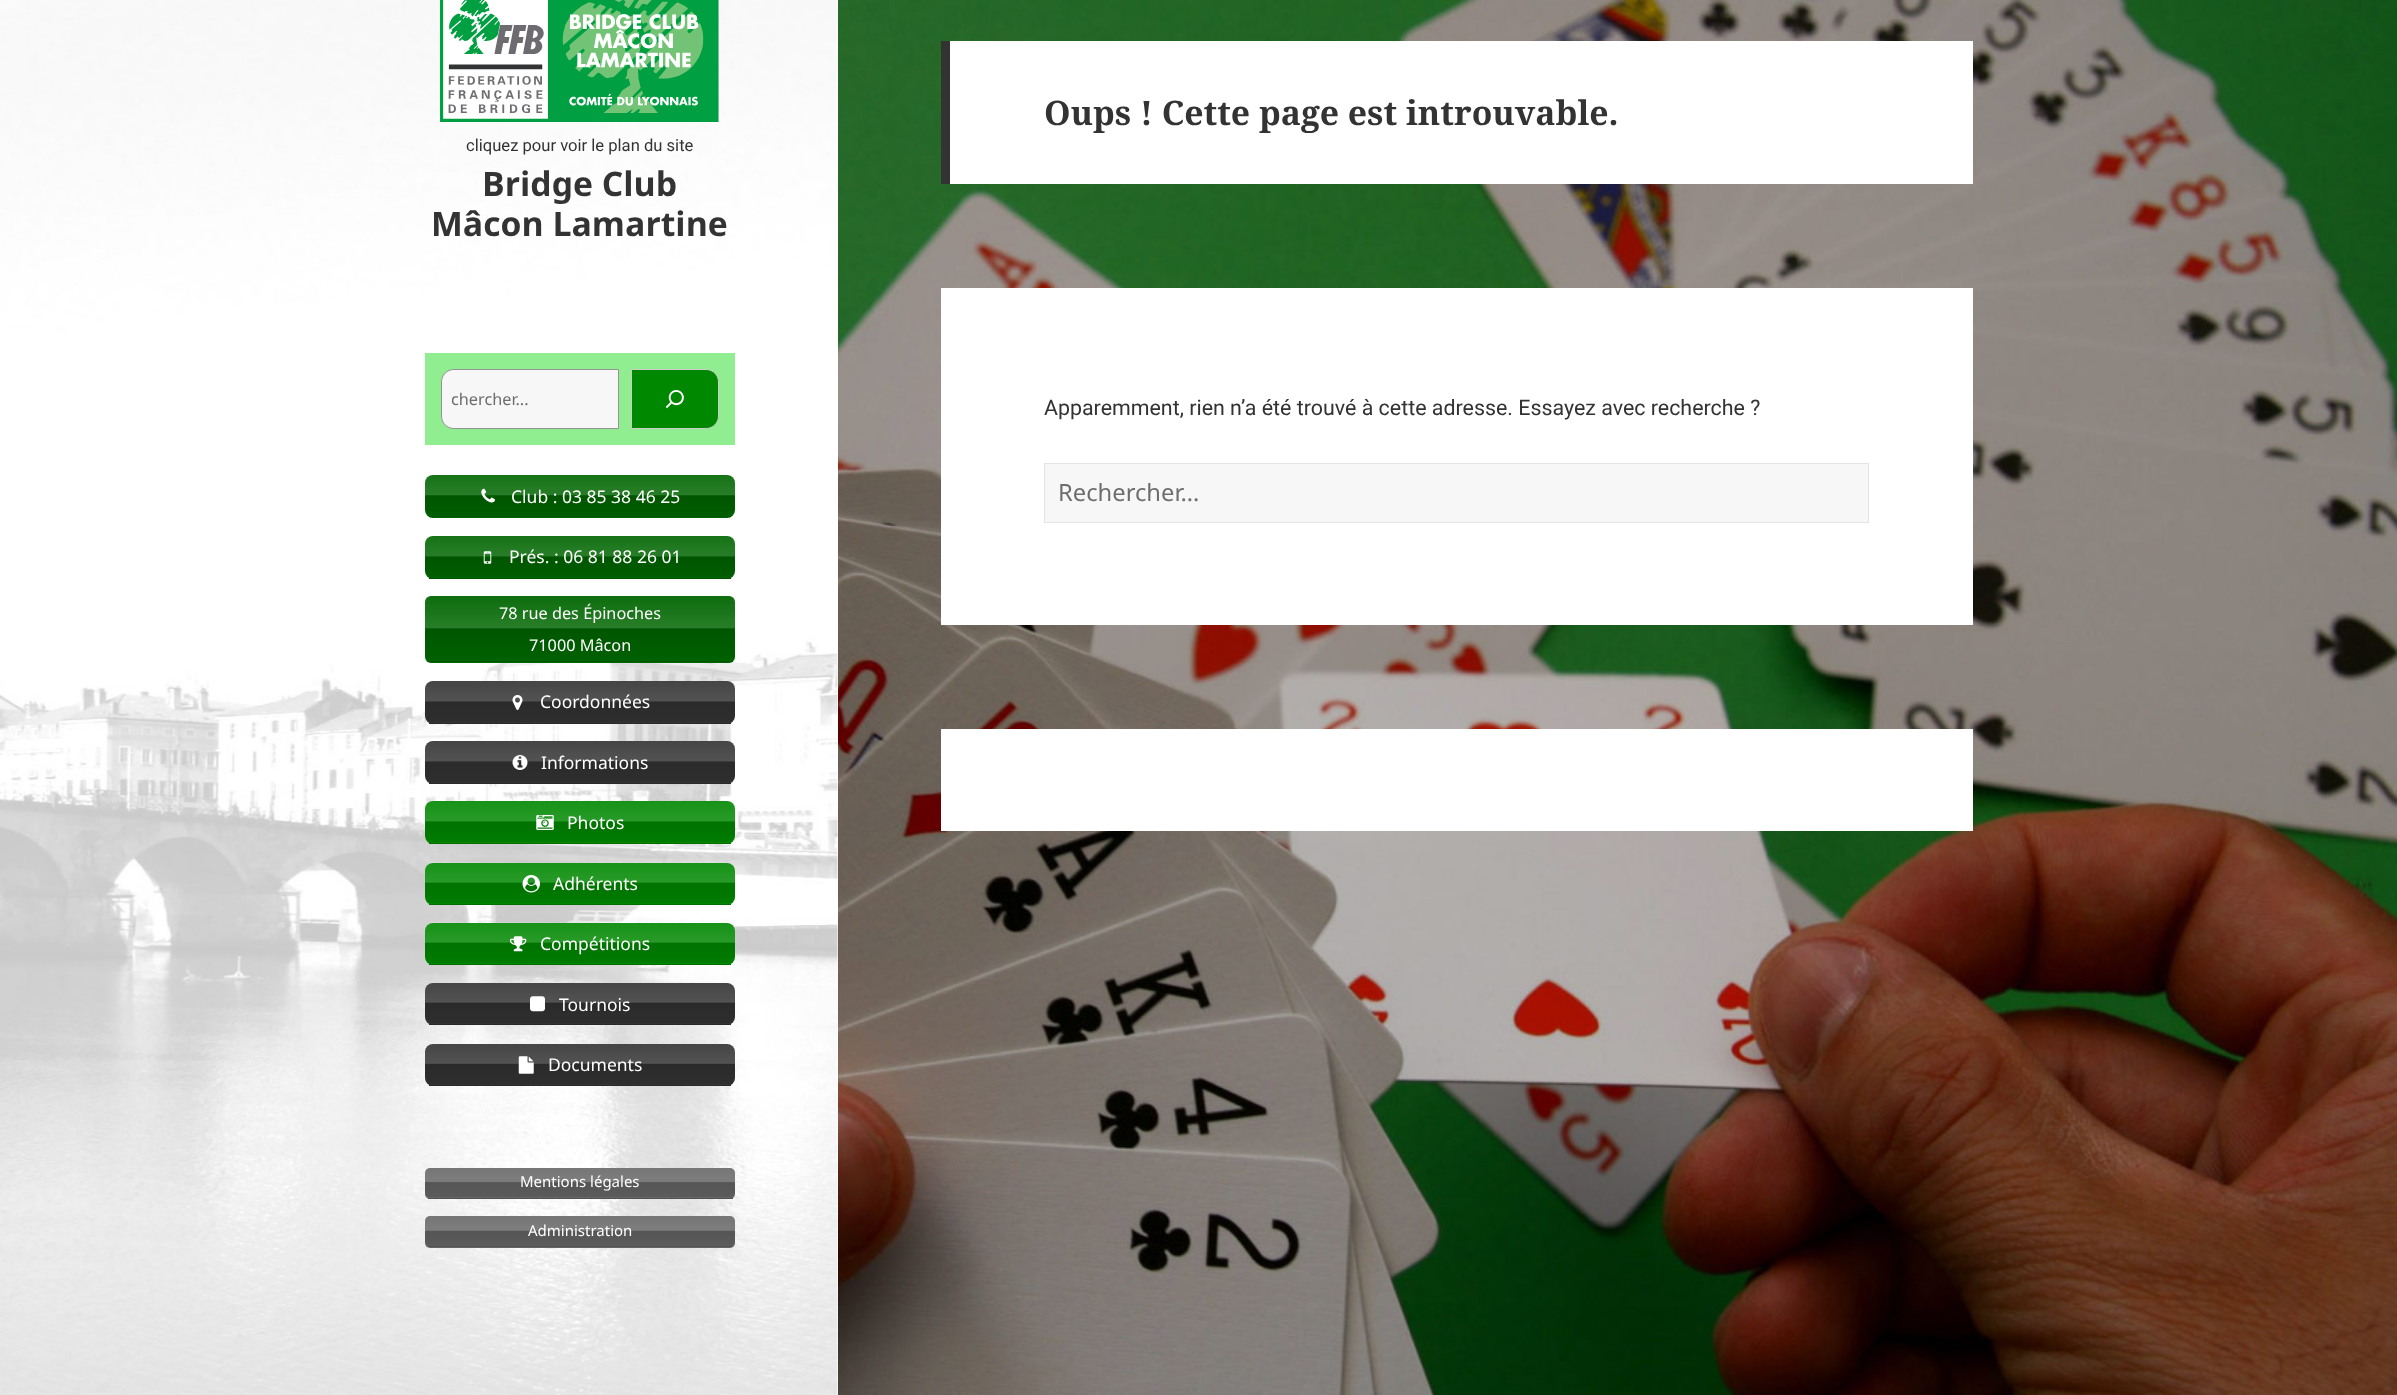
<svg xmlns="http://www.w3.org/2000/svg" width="2397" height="1395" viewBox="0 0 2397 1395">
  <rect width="100%" height="100%" fill="rgb(255,255,255)"/>
  <image x="838" y="0" width="1559" height="1395" href="pic1.png"/>
  <image x="0" y="0" width="838" height="1395" href="pic2.png"/>
  <image x="440" y="0" width="279" height="122" href="pic3.png"/>
  <text x="466" y="151" font-family="Roboto" font-size="16.6" fill="rgb(51,51,51)">cliquez pour voir le plan du site</text>
  <g font-family="Noto Sans" font-size="33.75" font-weight="bold" fill="rgb(51,51,51)">
    <text x="482" y="196">Bridge Club</text>
    <text x="431" y="236">Mâcon Lamartine</text>
  </g>
  <rect x="425" y="353" width="310" height="92" fill="rgb(144,238,144)"/>
  <path d="M454 369.5H618.5V428.5H454C447 428.5 441.5 423 441.5 416V382C441.5 375 447 369.5 454 369.5Z" fill="rgb(247,247,247)" stroke="rgb(148,148,148)"/>
  <text x="451" y="405" font-family="Noto Sans" font-size="16.25" fill="rgb(110,110,110)">chercher...</text>
  <path d="M631.5 369.5H706C713 369.5 718.5 375 718.5 382V416C718.5 423 713 428.5 706 428.5H631.5Z" fill="rgb(0,136,0)" stroke="rgb(204,204,204)"/>
  <image x="665" y="390" width="19" height="19" href="pic4.png"/>
  <rect x="425" y="475" width="310" height="43" rx="8" fill="rgb(0,102,0)"/>
  <rect x="429" y="516" width="302" height="1" fill="rgb(0,82,0)"/>
  <image x="425" y="475" width="310" height="41" href="pic5.png"/>
  <image x="481" y="488" width="14" height="15" href="pic6.png"/>
  <text x="511" y="503" font-family="Noto Sans" font-size="17.5" fill="rgb(255,255,255)">Club : 03 85 38 46 25</text>
  <rect x="425" y="536" width="310" height="43" rx="8" fill="rgb(0,102,0)"/>
  <rect x="429" y="578" width="302" height="1" fill="rgb(0,82,0)"/>
  <image x="425" y="536" width="310" height="41" href="pic7.png"/>
  <image x="483" y="551" width="9" height="13" href="pic8.png"/>
  <text x="509" y="563" font-family="Noto Sans" font-size="17.5" fill="rgb(255,255,255)">Prés. : 06 81 88 26 01</text>
  <rect x="425" y="596" width="310" height="67" rx="6" fill="rgb(0,102,0)"/>
  <rect x="429" y="661" width="304" height="1" fill="rgb(0,82,0)"/>
  <image x="425" y="596" width="310" height="64" href="pic9.png"/>
  <g font-family="Noto Sans" font-size="16.25" fill="rgb(255,255,255)">
    <text x="499" y="619">78 rue des Épinoches</text>
    <text x="529" y="651">71000 Mâcon</text>
  </g>
  <rect x="425" y="681" width="310" height="43" rx="8" fill="rgb(51,51,51)"/>
  <rect x="429" y="723" width="302" height="1" fill="rgb(41,41,41)"/>
  <image x="425" y="681" width="310" height="41" href="pic10.png"/>
  <image x="512" y="695" width="11" height="15" href="pic11.png"/>
  <text x="540" y="708" font-family="Noto Sans" font-size="17.5" fill="rgb(255,255,255)">Coordonnées</text>
  <rect x="425" y="741" width="310" height="43" rx="8" fill="rgb(51,51,51)"/>
  <rect x="429" y="783" width="302" height="1" fill="rgb(41,41,41)"/>
  <image x="425" y="741" width="310" height="41" href="pic12.png"/>
  <image x="512" y="755" width="16" height="15" href="pic13.png"/>
  <text x="541" y="769" font-family="Noto Sans" font-size="17.5" fill="rgb(255,255,255)">Informations</text>
  <rect x="425" y="801" width="310" height="43" rx="8" fill="rgb(0,136,0)"/>
  <rect x="429" y="843" width="302" height="1" fill="rgb(0,109,0)"/>
  <image x="425" y="801" width="310" height="41" href="pic14.png"/>
  <image x="536" y="815" width="18" height="15" href="pic15.png"/>
  <text x="567" y="829" font-family="Noto Sans" font-size="17.5" fill="rgb(255,255,255)">Photos</text>
  <rect x="425" y="863" width="310" height="42" rx="8" fill="rgb(0,136,0)"/>
  <rect x="429" y="904" width="302" height="1" fill="rgb(0,109,0)"/>
  <image x="425" y="862" width="310" height="41" href="pic16.png"/>
  <image x="522" y="875" width="18" height="18" href="pic17.png"/>
  <text x="553" y="890" font-family="Noto Sans" font-size="17.5" fill="rgb(255,255,255)">Adhérents</text>
  <rect x="425" y="923" width="310" height="42" rx="8" fill="rgb(0,136,0)"/>
  <rect x="429" y="964" width="302" height="1" fill="rgb(0,109,0)"/>
  <image x="425" y="922" width="310" height="41" href="pic18.png"/>
  <image x="510" y="936" width="17" height="16" href="pic19.png"/>
  <text x="540" y="950" font-family="Noto Sans" font-size="17.5" fill="rgb(255,255,255)">Compétitions</text>
  <rect x="425" y="983" width="310" height="42" rx="8" fill="rgb(51,51,51)"/>
  <rect x="429" y="1024" width="302" height="1" fill="rgb(41,41,41)"/>
  <image x="425" y="983" width="310" height="40" href="pic20.png"/>
  <image x="530" y="996" width="15" height="16" href="pic21.png"/>
  <text x="559" y="1011" font-family="Noto Sans" font-size="17.5" fill="rgb(255,255,255)">Tournois</text>
  <rect x="425" y="1044" width="310" height="42" rx="8" fill="rgb(51,51,51)"/>
  <rect x="429" y="1085" width="302" height="1" fill="rgb(41,41,41)"/>
  <image x="425" y="1044" width="310" height="40" href="pic22.png"/>
  <image x="518" y="1056" width="16" height="18" href="pic23.png"/>
  <text x="548" y="1071" font-family="Noto Sans" font-size="17.5" fill="rgb(255,255,255)">Documents</text>
  <rect x="425" y="1168" width="310" height="31" rx="5" fill="rgb(102,102,102)"/>
  <rect x="428" y="1198" width="305" height="1" fill="rgb(82,82,82)"/>
  <image x="425" y="1168" width="310" height="29" href="pic24.png"/>
  <text x="520" y="1187" font-family="Noto Sans" font-size="15" fill="rgb(255,255,255)">Mentions légales</text>
  <rect x="425" y="1216" width="310" height="32" rx="5" fill="rgb(102,102,102)"/>
  <rect x="428" y="1246" width="305" height="1" fill="rgb(82,82,82)"/>
  <image x="425" y="1216" width="310" height="30" href="pic25.png"/>
  <text x="528" y="1236" font-family="Noto Sans" font-size="15" fill="rgb(255,255,255)">Administration</text>
  <rect x="950" y="41" width="1023" height="143" fill="rgb(255,255,255)"/>
  <rect x="941" y="41" width="9" height="143" fill="rgb(51,51,51)"/>
  <text x="1044" y="125" font-family="Noto Serif" font-size="33.75" font-weight="bold" fill="rgb(51,51,51)">Oups ! Cette page est introuvable.</text>
  <rect x="941" y="288" width="1032" height="337" fill="rgb(255,255,255)"/>
  <text x="1044" y="415" font-family="Roboto" font-size="21.4" fill="rgb(51,51,51)">Apparemment, rien n’a été trouvé à cette adresse. Essayez avec recherche ?</text>
  <rect x="1044.5" y="463.5" width="824" height="59" fill="rgb(247,247,247)" stroke="rgb(227,227,227)"/>
  <text x="1058" y="501" font-family="Noto Sans" font-size="23.75" fill="rgb(110,110,110)">Rechercher…</text>
  <rect x="941" y="729" width="1032" height="102" fill="rgb(255,255,255)"/>
</svg>
